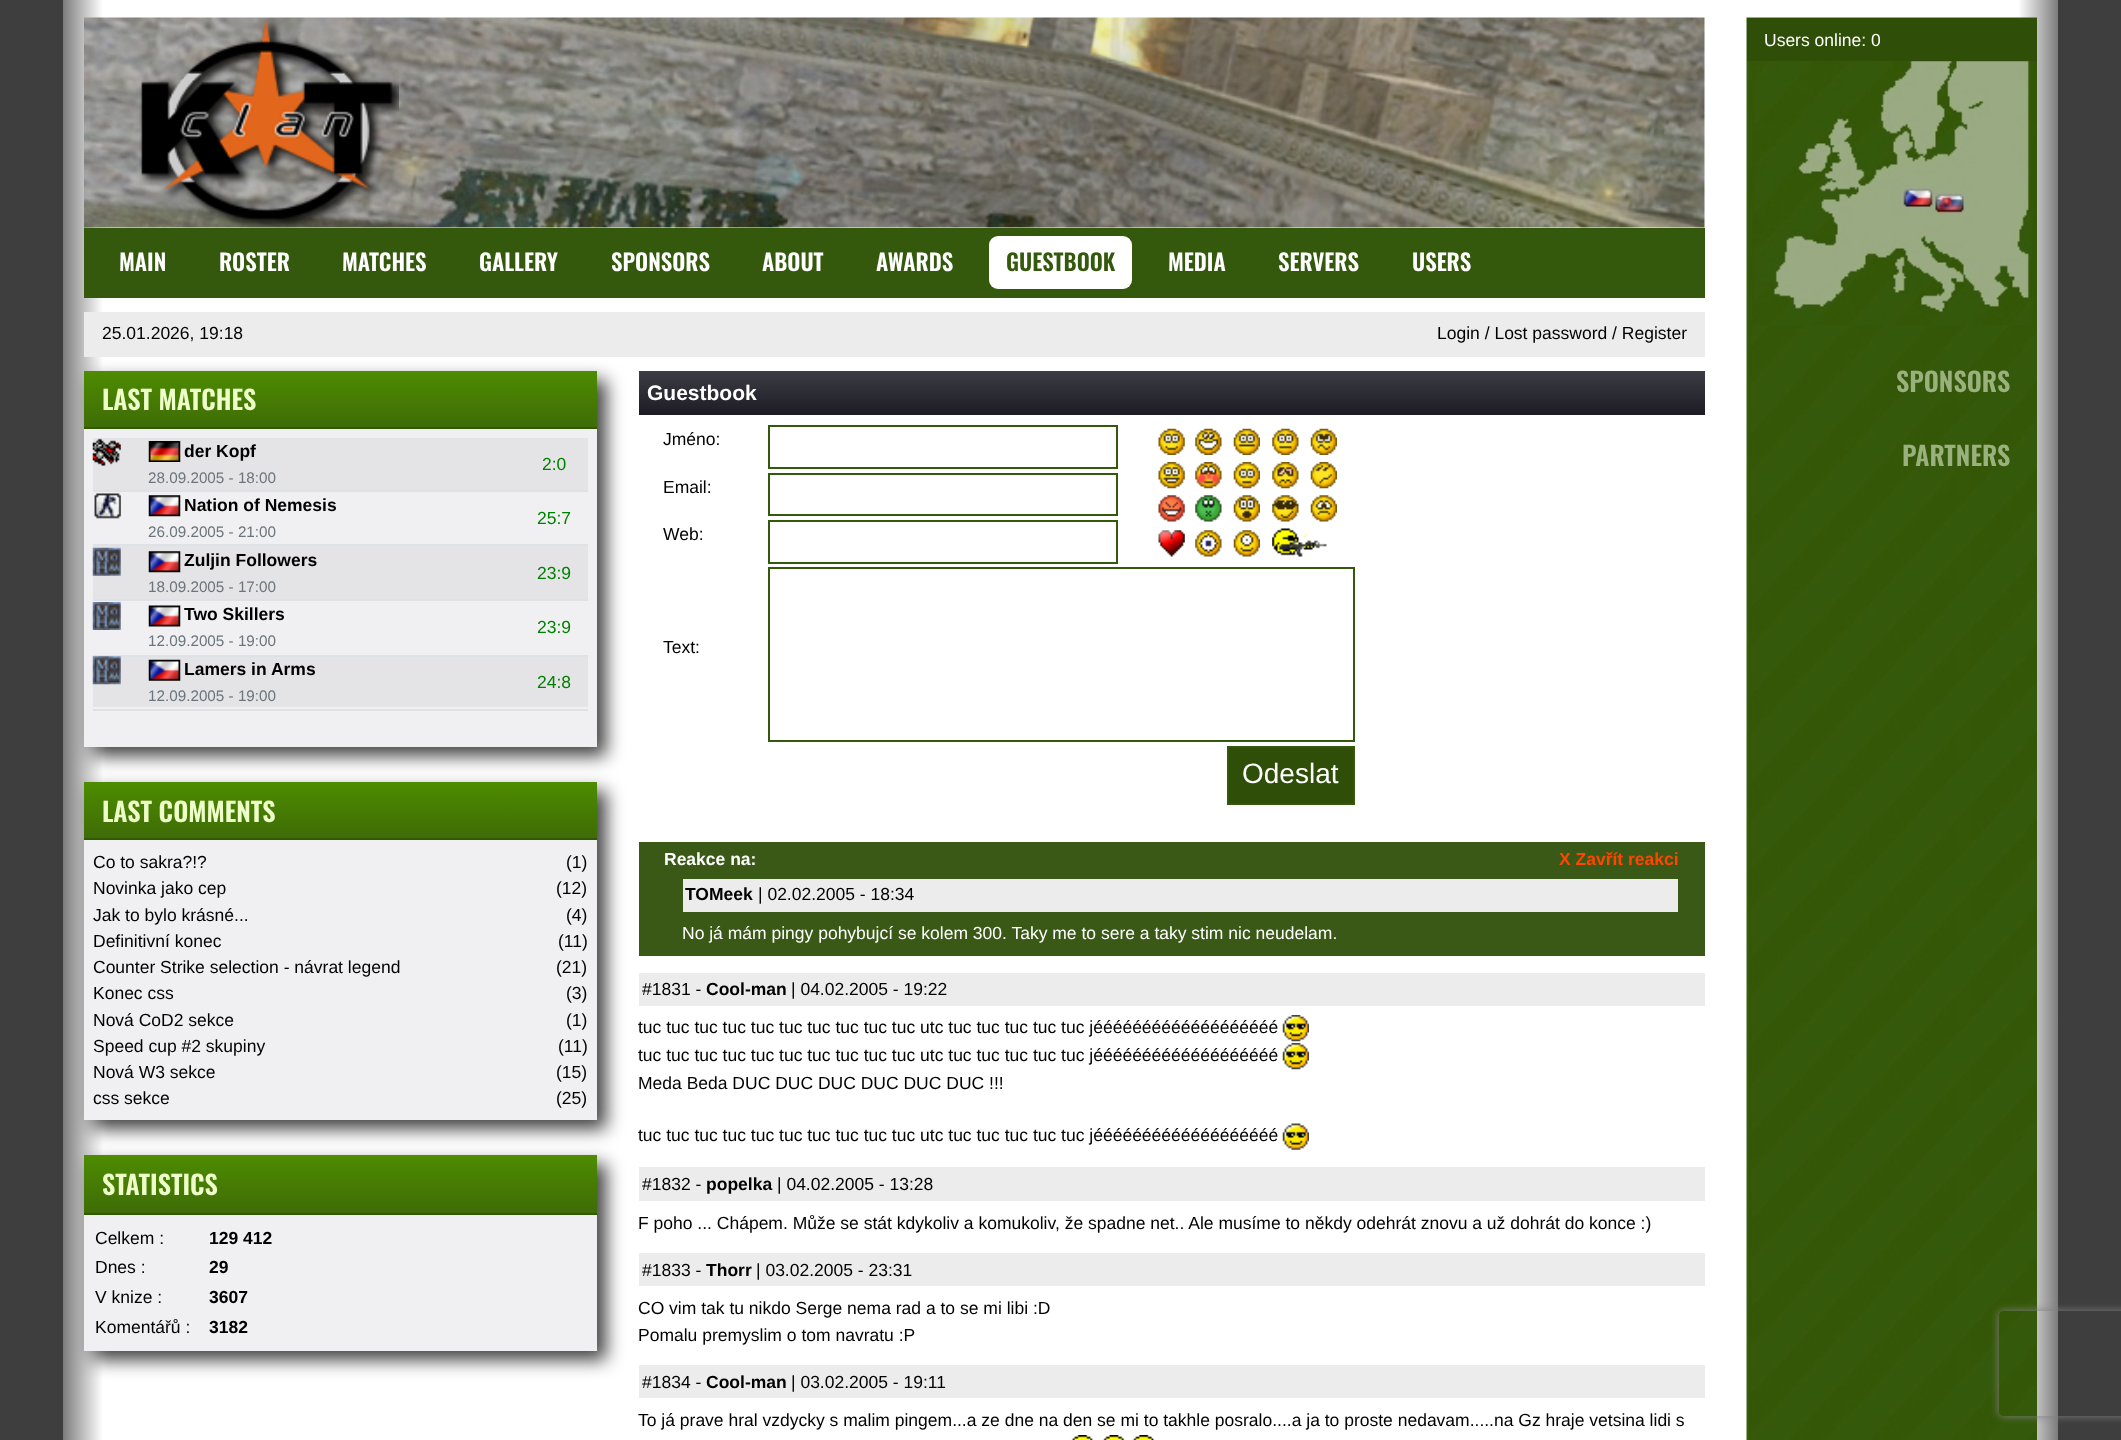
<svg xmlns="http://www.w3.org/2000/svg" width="2121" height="1440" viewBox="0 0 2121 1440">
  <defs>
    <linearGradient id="g1" gradientUnits="userSpaceOnUse" x1="63" y1="1427" x2="2058" y2="1427"><stop offset="0" stop-color="rgb(124,124,124)"/><stop offset="0.02" stop-color="rgb(255,255,255)"/><stop offset="0.98" stop-color="rgb(255,255,255)"/><stop offset="1" stop-color="rgb(124,124,124)"/></linearGradient>
    <linearGradient id="g2" gradientUnits="userSpaceOnUse" x1="340" y1="371" x2="340" y2="427"><stop offset="0" stop-color="rgb(77,140,0)"/><stop offset="1" stop-color="rgb(63,108,7)"/></linearGradient>
    <linearGradient id="g3" gradientUnits="userSpaceOnUse" x1="340" y1="782" x2="340" y2="838"><stop offset="0" stop-color="rgb(77,140,0)"/><stop offset="1" stop-color="rgb(63,108,7)"/></linearGradient>
    <linearGradient id="g4" gradientUnits="userSpaceOnUse" x1="340" y1="1155" x2="340" y2="1213"><stop offset="0" stop-color="rgb(77,140,0)"/><stop offset="1" stop-color="rgb(63,108,7)"/></linearGradient>
    <linearGradient id="g5" gradientUnits="userSpaceOnUse" x1="1172" y1="371" x2="1172" y2="415"><stop offset="0" stop-color="rgb(60,60,68)"/><stop offset="1" stop-color="rgb(29,28,36)"/></linearGradient>
    <clipPath id="clip1"><path d="M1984 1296H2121V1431H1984ZM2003 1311H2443C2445 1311 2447 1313 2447 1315V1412C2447 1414 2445 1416 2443 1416H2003C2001 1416 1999 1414 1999 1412V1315C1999 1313 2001 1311 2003 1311Z" clip-rule="evenodd"/></clipPath>
  </defs>
  <rect width="100%" height="100%" fill="rgb(62,62,62)"/>
  <rect x="63" y="0" width="1995" height="1440" fill="url(#g1)"/>
  <image x="84" y="17" width="1621" height="211" href="pic1.png"/>
  <image x="139" y="18" width="260" height="210" href="pic2.png"/>
  <rect x="84" y="228" width="1621" height="70" fill="rgb(52,89,12)"/>
  <g font-family="Oswald" font-size="22.75" font-weight="600" fill="rgb(255,255,255)">
    <text x="119" y="271">MAIN</text>
    <text x="219" y="271">ROSTER</text>
    <text x="342" y="271">MATCHES</text>
    <text x="479" y="271">GALLERY</text>
    <text x="611" y="271">SPONSORS</text>
    <text x="762" y="271">ABOUT</text>
    <text x="876" y="271">AWARDS</text>
  </g>
  <rect x="989" y="236" width="143" height="53" rx="9" fill="rgb(255,255,255)"/>
  <text x="1006" y="271" font-family="Oswald" font-size="22.75" font-weight="600" fill="rgb(52,89,12)">GUESTBOOK</text>
  <g font-family="Oswald" font-size="22.75" font-weight="600" fill="rgb(255,255,255)">
    <text x="1168" y="271">MEDIA</text>
    <text x="1278" y="271">SERVERS</text>
    <text x="1412" y="271">USERS</text>
  </g>
  <rect x="84" y="312" width="1621" height="45" fill="rgb(236,236,236)"/>
  <g font-family="Liberation Sans" font-size="17.5" fill="rgb(0,0,0)">
    <text x="102" y="339">25.01.2026, 19:18</text>
    <text x="1437" y="339">Login / Lost password / Register</text>
  </g>
  <rect x="93" y="380" width="513" height="376" fill="rgba(0,0,0,0.75)" filter="blur(9px)"/>
  <rect x="84" y="429" width="513" height="318" fill="rgb(240,240,242)"/>
  <rect x="84" y="371" width="513" height="56" fill="url(#g2)"/>
  <rect x="84" y="427" width="513" height="2" fill="rgb(49,89,0)"/>
  <text x="102" y="410" font-family="Oswald" font-size="26.25" font-weight="600" fill="rgb(238,255,202)">LAST MATCHES</text>
  <rect x="93" y="438" width="495" height="52" fill="rgb(228,228,230)"/>
  <image x="92" y="438" width="29" height="28" href="pic3.png"/>
  <image x="148" y="441" width="33" height="21" href="pic4.png"/>
  <text x="184" y="457" font-family="Liberation Sans" font-size="17.5" font-weight="bold" fill="rgb(0,0,0)">der Kopf</text>
  <text x="148" y="483" font-family="Liberation Sans" font-size="15.25" fill="rgb(108,117,125)">28.09.2005 - 18:00</text>
  <rect x="93" y="490" width="495" height="2" fill="rgb(222,226,230)"/>
  <text x="542" y="470" font-family="Liberation Sans" font-size="17.5" fill="rgb(0,128,0)">2:0</text>
  <image x="94" y="493" width="27" height="26" href="pic5.png"/>
  <image x="148" y="495" width="33" height="22" href="pic6.png"/>
  <text x="184" y="511" font-family="Liberation Sans" font-size="17.5" font-weight="bold" fill="rgb(0,0,0)">Nation of Nemesis</text>
  <text x="148" y="537" font-family="Liberation Sans" font-size="15.25" fill="rgb(108,117,125)">26.09.2005 - 21:00</text>
  <rect x="93" y="544" width="495" height="2" fill="rgb(222,226,230)"/>
  <text x="537" y="524" font-family="Liberation Sans" font-size="17.5" fill="rgb(0,128,0)">25:7</text>
  <rect x="93" y="546" width="495" height="53" fill="rgb(228,228,230)"/>
  <image x="92" y="547" width="29" height="29" href="pic7.png"/>
  <image x="148" y="551" width="33" height="22" href="pic8.png"/>
  <text x="184" y="566" font-family="Liberation Sans" font-size="17.5" font-weight="bold" fill="rgb(0,0,0)">Zuljin Followers</text>
  <text x="148" y="592" font-family="Liberation Sans" font-size="15.25" fill="rgb(108,117,125)">18.09.2005 - 17:00</text>
  <rect x="93" y="599" width="495" height="2" fill="rgb(222,226,230)"/>
  <text x="537" y="579" font-family="Liberation Sans" font-size="17.5" fill="rgb(0,128,0)">23:9</text>
  <image x="92" y="602" width="29" height="28" href="pic9.png"/>
  <image x="148" y="605" width="33" height="22" href="pic10.png"/>
  <text x="184" y="620" font-family="Liberation Sans" font-size="17.5" font-weight="bold" fill="rgb(0,0,0)">Two Skillers</text>
  <text x="148" y="646" font-family="Liberation Sans" font-size="15.25" fill="rgb(108,117,125)">12.09.2005 - 19:00</text>
  <rect x="93" y="655" width="495" height="2" fill="rgb(222,226,230)"/>
  <text x="537" y="633" font-family="Liberation Sans" font-size="17.5" fill="rgb(0,128,0)">23:9</text>
  <rect x="93" y="657" width="495" height="50" fill="rgb(228,228,230)"/>
  <image x="92" y="656" width="29" height="29" href="pic11.png"/>
  <image x="148" y="659" width="33" height="22" href="pic12.png"/>
  <text x="184" y="675" font-family="Liberation Sans" font-size="17.5" font-weight="bold" fill="rgb(0,0,0)">Lamers in Arms</text>
  <text x="148" y="701" font-family="Liberation Sans" font-size="15.25" fill="rgb(108,117,125)">12.09.2005 - 19:00</text>
  <rect x="93" y="709" width="495" height="2" fill="rgb(222,226,230)"/>
  <text x="537" y="688" font-family="Liberation Sans" font-size="17.5" fill="rgb(0,128,0)">24:8</text>
  <rect x="93" y="791" width="513" height="338" fill="rgba(0,0,0,0.75)" filter="blur(9px)"/>
  <rect x="84" y="840" width="513" height="280" fill="rgb(240,240,242)"/>
  <rect x="84" y="782" width="513" height="56" fill="url(#g3)"/>
  <rect x="84" y="838" width="513" height="2" fill="rgb(49,89,0)"/>
  <text x="102" y="822" font-family="Oswald" font-size="26.25" font-weight="600" fill="rgb(238,255,202)">LAST COMMENTS</text>
  <g font-family="Liberation Sans" font-size="17.5" fill="rgb(0,0,0)">
    <text x="93" y="868">Co to sakra?!?</text>
    <text x="566" y="868">(1)</text>
    <text x="93" y="894">Novinka jako cep</text>
    <text x="556" y="894">(12)</text>
    <text x="93" y="921">Jak to bylo krásné...</text>
    <text x="566" y="921">(4)</text>
    <text x="93" y="947">Definitivní konec</text>
    <text x="558" y="947">(11)</text>
    <text x="93" y="973">Counter Strike selection - návrat legend</text>
    <text x="556" y="973">(21)</text>
    <text x="93" y="999">Konec css</text>
    <text x="566" y="999">(3)</text>
    <text x="93" y="1026">Nová CoD2 sekce</text>
    <text x="566" y="1026">(1)</text>
    <text x="93" y="1052">Speed cup #2 skupiny</text>
    <text x="558" y="1052">(11)</text>
    <text x="93" y="1078">Nová W3 sekce</text>
    <text x="556" y="1078">(15)</text>
    <text x="93" y="1104">css sekce</text>
    <text x="556" y="1104">(25)</text>
  </g>
  <rect x="93" y="1164" width="513" height="196" fill="rgba(0,0,0,0.75)" filter="blur(9px)"/>
  <rect x="84" y="1215" width="513" height="136" fill="rgb(240,240,242)"/>
  <rect x="84" y="1155" width="513" height="58" fill="url(#g4)"/>
  <rect x="84" y="1213" width="513" height="2" fill="rgb(49,89,0)"/>
  <text x="102" y="1195" font-family="Oswald" font-size="26.25" font-weight="600" fill="rgb(238,255,202)">STATISTICS</text>
  <text x="95" y="1244" font-family="Liberation Sans" font-size="17.5" fill="rgb(0,0,0)">Celkem :</text>
  <text x="209" y="1244" font-family="Liberation Sans" font-size="17.5" font-weight="bold" fill="rgb(0,0,0)">129 412</text>
  <text x="95" y="1273" font-family="Liberation Sans" font-size="17.5" fill="rgb(0,0,0)">Dnes :</text>
  <text x="209" y="1273" font-family="Liberation Sans" font-size="17.5" font-weight="bold" fill="rgb(0,0,0)">29</text>
  <text x="95" y="1303" font-family="Liberation Sans" font-size="17.5" fill="rgb(0,0,0)">V knize :</text>
  <text x="209" y="1303" font-family="Liberation Sans" font-size="17.5" font-weight="bold" fill="rgb(0,0,0)">3607</text>
  <text x="95" y="1333" font-family="Liberation Sans" font-size="17.5" fill="rgb(0,0,0)">Komentářů :</text>
  <text x="209" y="1333" font-family="Liberation Sans" font-size="17.5" font-weight="bold" fill="rgb(0,0,0)">3182</text>
  <rect x="639" y="371" width="1066" height="44" fill="url(#g5)"/>
  <text x="647" y="400" font-family="Liberation Sans" font-size="21" font-weight="bold" fill="rgb(255,255,255)">Guestbook</text>
  <text x="663" y="445" font-family="Liberation Sans" font-size="17.5" fill="rgb(0,0,0)">Jméno:</text>
  <rect x="769" y="426" width="348" height="42" fill="none" stroke="rgb(52,89,11)" stroke-width="2"/>
  <image x="1158" y="428" width="27" height="27" href="pic13.png"/>
  <image x="1195" y="428" width="27" height="27" href="pic14.png"/>
  <image x="1233" y="428" width="27" height="27" href="pic15.png"/>
  <image x="1272" y="428" width="27" height="27" href="pic16.png"/>
  <image x="1310" y="428" width="27" height="27" href="pic17.png"/>
  <image x="1158" y="462" width="27" height="27" href="pic18.png"/>
  <image x="1195" y="462" width="27" height="27" href="pic19.png"/>
  <image x="1233" y="462" width="27" height="27" href="pic20.png"/>
  <image x="1272" y="462" width="27" height="27" href="pic21.png"/>
  <image x="1310" y="462" width="27" height="27" href="pic22.png"/>
  <image x="1158" y="495" width="27" height="27" href="pic23.png"/>
  <image x="1195" y="495" width="27" height="27" href="pic24.png"/>
  <image x="1233" y="495" width="27" height="27" href="pic25.png"/>
  <image x="1272" y="495" width="27" height="27" href="pic26.png"/>
  <image x="1310" y="495" width="27" height="27" href="pic27.png"/>
  <image x="1158" y="530" width="27" height="27" href="pic28.png"/>
  <image x="1195" y="530" width="27" height="27" href="pic29.png"/>
  <image x="1233" y="530" width="27" height="27" href="pic30.png"/>
  <image x="1272" y="528" width="55" height="29" href="pic31.png"/>
  <text x="663" y="493" font-family="Liberation Sans" font-size="17.5" fill="rgb(0,0,0)">Email:</text>
  <rect x="769" y="474" width="348" height="41" fill="none" stroke="rgb(52,89,11)" stroke-width="2"/>
  <text x="663" y="540" font-family="Liberation Sans" font-size="17.5" fill="rgb(0,0,0)">Web:</text>
  <rect x="769" y="521" width="348" height="42" fill="none" stroke="rgb(52,89,11)" stroke-width="2"/>
  <text x="663" y="653" font-family="Liberation Sans" font-size="17.5" fill="rgb(0,0,0)">Text:</text>
  <rect x="769" y="568" width="585" height="173" fill="none" stroke="rgb(52,89,11)" stroke-width="2"/>
  <rect x="1228" y="747" width="126" height="57" fill="rgb(47,78,8)" stroke="rgb(52,89,11)" stroke-width="2"/>
  <text x="1242" y="783" font-family="Liberation Sans" font-size="28" fill="rgb(255,255,255)">Odeslat</text>
  <rect x="639" y="842" width="1066" height="114" fill="rgb(58,89,22)"/>
  <text x="664" y="865" font-family="Liberation Sans" font-size="17.5" font-weight="bold" fill="rgb(255,255,255)">Reakce na:</text>
  <text x="1559" y="865" font-family="Liberation Sans" font-size="17.5" font-weight="bold" fill="rgb(255,69,0)">X Zavřít reakci</text>
  <rect x="683" y="879" width="995" height="33" fill="rgb(236,236,236)"/>
  <text x="685" y="900" font-family="Liberation Sans" font-size="17.5" font-weight="bold" fill="rgb(0,0,0)">TOMeek</text>
  <text x="758" y="900" font-family="Liberation Sans" font-size="17.5" fill="rgb(0,0,0)">| 02.02.2005 - 18:34</text>
  <text x="682" y="939" font-family="Liberation Sans" font-size="17.5" fill="rgb(255,255,255)">No já mám pingy pohybujcí se kolem 300. Taky me to sere a taky stim nic neudelam.</text>
  <rect x="639" y="973" width="1066" height="33" fill="rgb(236,236,236)"/>
  <text x="642" y="995" font-family="Liberation Sans" font-size="17.5" fill="rgb(0,0,0)">#1831 -</text>
  <text x="706" y="995" font-family="Liberation Sans" font-size="17.5" font-weight="bold" fill="rgb(0,0,0)">Cool-man</text>
  <g font-family="Liberation Sans" font-size="17.5" fill="rgb(0,0,0)">
    <text x="791" y="995">| 04.02.2005 - 19:22</text>
    <text x="638" y="1033">tuc tuc tuc tuc tuc tuc tuc tuc tuc tuc utc tuc tuc tuc tuc tuc jééééééééééééééééééé</text>
  </g>
  <image x="1282" y="1015" width="27" height="27" href="pic32.png"/>
  <text x="638" y="1061" font-family="Liberation Sans" font-size="17.5" fill="rgb(0,0,0)">tuc tuc tuc tuc tuc tuc tuc tuc tuc tuc utc tuc tuc tuc tuc tuc jééééééééééééééééééé</text>
  <image x="1282" y="1043" width="27" height="27" href="pic32.png"/>
  <g font-family="Liberation Sans" font-size="17.5" fill="rgb(0,0,0)">
    <text x="638" y="1089">Meda Beda DUC DUC DUC DUC DUC DUC !!!</text>
    <text x="638" y="1141">tuc tuc tuc tuc tuc tuc tuc tuc tuc tuc utc tuc tuc tuc tuc tuc jééééééééééééééééééé</text>
  </g>
  <image x="1282" y="1123" width="27" height="27" href="pic33.png"/>
  <rect x="639" y="1167" width="1066" height="34" fill="rgb(236,236,236)"/>
  <text x="642" y="1190" font-family="Liberation Sans" font-size="17.5" fill="rgb(0,0,0)">#1832 -</text>
  <text x="706" y="1190" font-family="Liberation Sans" font-size="17.5" font-weight="bold" fill="rgb(0,0,0)">popelka</text>
  <g font-family="Liberation Sans" font-size="17.5" fill="rgb(0,0,0)">
    <text x="777" y="1190">| 04.02.2005 - 13:28</text>
    <text x="638" y="1229">F poho ... Chápem. Může se stát kdykoliv a komukoliv, že spadne net.. Ale musíme to někdy odehrát znovu a už dohrát do konce :)</text>
  </g>
  <rect x="639" y="1253" width="1066" height="33" fill="rgb(236,236,236)"/>
  <text x="642" y="1276" font-family="Liberation Sans" font-size="17.5" fill="rgb(0,0,0)">#1833 -</text>
  <text x="706" y="1276" font-family="Liberation Sans" font-size="17.5" font-weight="bold" fill="rgb(0,0,0)">Thorr</text>
  <g font-family="Liberation Sans" font-size="17.5" fill="rgb(0,0,0)">
    <text x="756" y="1276">| 03.02.2005 - 23:31</text>
    <text>
      <tspan x="638" y="1314">CO vim tak tu nikdo Serge nema rad a to se mi libi :D</tspan>
      <tspan x="638" y="1341">Pomalu premyslim o tom navratu :P</tspan>
    </text>
  </g>
  <rect x="639" y="1365" width="1066" height="33" fill="rgb(236,236,236)"/>
  <text x="642" y="1388" font-family="Liberation Sans" font-size="17.5" fill="rgb(0,0,0)">#1834 -</text>
  <text x="706" y="1388" font-family="Liberation Sans" font-size="17.5" font-weight="bold" fill="rgb(0,0,0)">Cool-man</text>
  <g font-family="Liberation Sans" font-size="17.5" fill="rgb(0,0,0)">
    <text x="791" y="1388">| 03.02.2005 - 19:11</text>
    <text x="638" y="1426">To já prave hral vzdycky s malim pingem...a ze dne na den se mi to takhle posralo....a ja to proste nedavam.....na Gz hraje vetsina lidi s</text>
  </g>
  <image x="1071" y="1435" width="23" height="5" href="pic34.png"/>
  <image x="1102" y="1435" width="23" height="5" href="pic35.png"/>
  <image x="1132" y="1435" width="23" height="5" href="pic36.png"/>
  <image x="1746" y="17" width="291" height="1423" href="pic37.png"/>
  <rect x="1747" y="18" width="290" height="43" fill="rgb(47,78,8)"/>
  <text x="1764" y="46" font-family="Liberation Sans" font-size="17.5" fill="rgb(255,255,255)">Users online: 0</text>
  <image x="1752" y="61" width="285" height="264" href="pic38.png"/>
  <g font-family="Oswald" font-size="26.25" font-weight="600" fill="rgb(154,177,125)">
    <text x="1896" y="392">SPONSORS</text>
    <text x="1902" y="466">PARTNERS</text>
  </g>
  <g clip-path="url(#clip1)">
    <rect x="1999" y="1311" width="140" height="105" rx="4" fill="rgb(128,128,128)" filter="blur(4.5px)"/>
  </g>
</svg>
